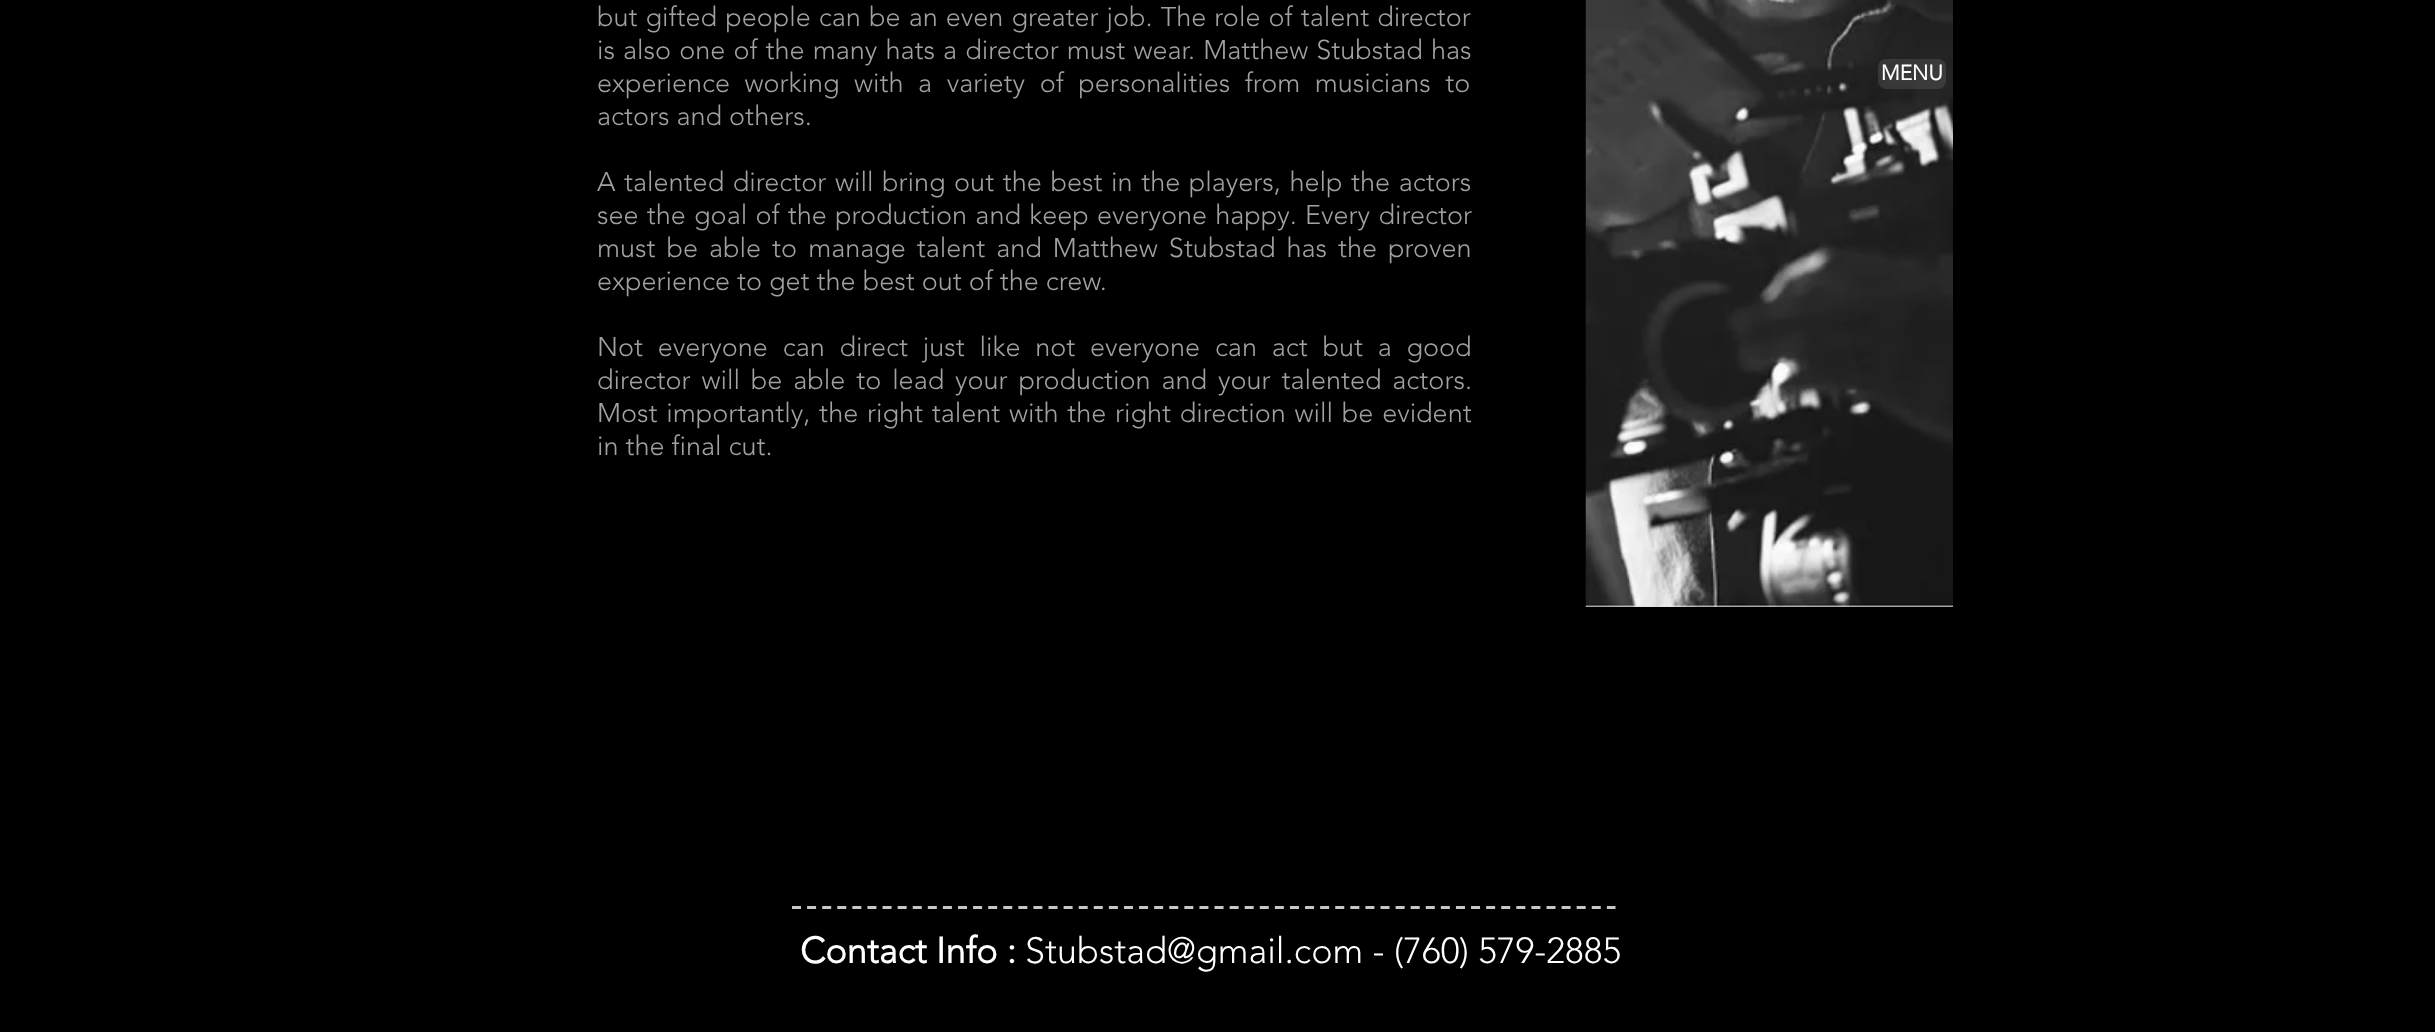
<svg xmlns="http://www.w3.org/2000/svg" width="2435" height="1032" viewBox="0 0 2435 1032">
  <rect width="100%" height="100%" fill="rgb(0,0,0)"/>
  <g font-family="'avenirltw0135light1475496'" font-size="27" font-weight="300" fill="rgb(161,161,161)">
    <text>
      <tspan x="597" y="26" word-spacing="1.1">but gifted people can be an even greater job. The role of talent director</tspan>
      <tspan x="597" y="59" word-spacing="1.1">is also one of the many hats a director must wear. Matthew Stubstad has</tspan>
      <tspan x="597" y="92" word-spacing="7.5">experience working with a variety of personalities from musicians to</tspan>
      <tspan x="597" y="125">actors and others.</tspan>
    </text>
    <text>
      <tspan x="597" y="191" word-spacing="1.6">A talented director will bring out the best in the players, help the actors</tspan>
      <tspan x="597" y="224" word-spacing="1.25">see the goal of the production and keep everyone happy. Every director</tspan>
      <tspan x="597" y="257" word-spacing="4">must be able to manage talent and Matthew Stubstad has the proven</tspan>
      <tspan x="597" y="290">experience to get the best out of the crew.</tspan>
    </text>
    <text>
      <tspan x="597" y="356" word-spacing="7.75">Not everyone can direct just like not everyone can act but a good</tspan>
      <tspan x="597" y="389" word-spacing="3.9">director will be able to lead your production and your talented actors.</tspan>
      <tspan x="597" y="422" word-spacing="1.75">Most importantly, the right talent with the right direction will be evident</tspan>
      <tspan x="597" y="455">in the final cut.</tspan>
    </text>
  </g>
  <image x="1585" y="0" width="368" height="607" href="pic1.png"/>
  <rect x="1878" y="59" width="68" height="30" rx="8" fill="rgba(255,255,255,0.1)"/>
  <text x="1881" y="80" font-family="'avenirltw0135light1475496'" font-size="21" font-weight="bold" fill="rgb(255,255,255)">MENU</text>
  <path d="M792 907.5H1615.5" fill="none" stroke="rgb(199,199,199)" stroke-width="3" stroke-dasharray="9 6.09"/>
  <text x="800" y="963" font-family="'avenirltw0135light1475496'" font-size="36" font-weight="bold" fill="rgb(255,255,255)">Contact Info :</text>
  <text x="1025" y="963" font-family="'avenirltw0135light1475496'" font-size="36" font-weight="300" fill="rgb(255,255,255)">Stubstad@gmail.com - (760) 579-2885</text>
</svg>
